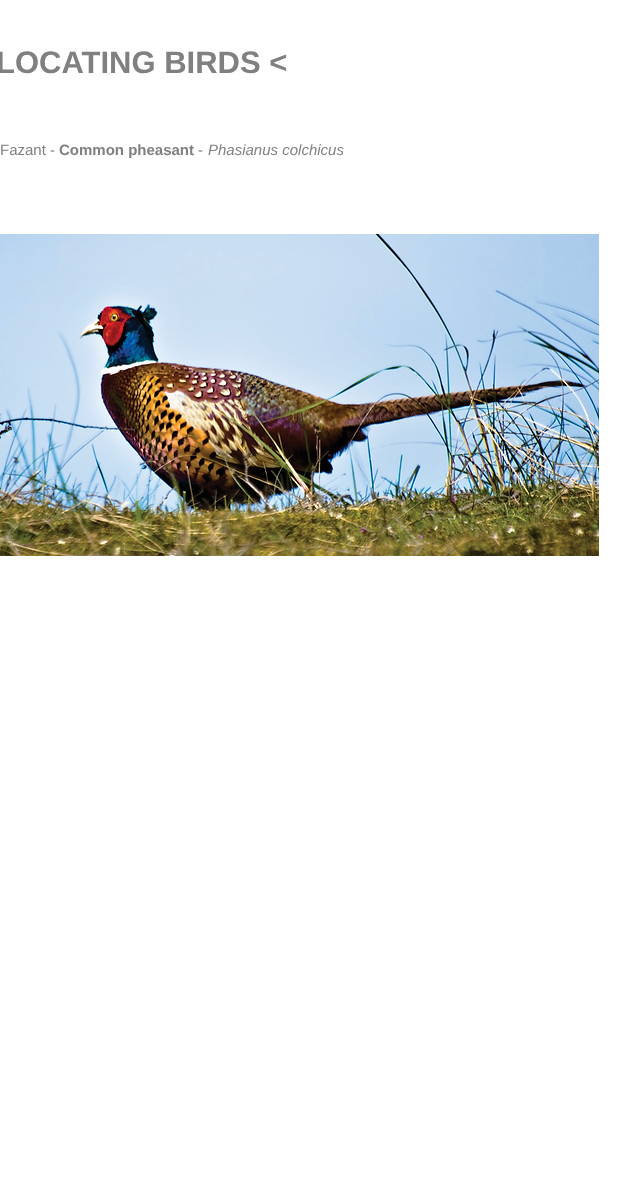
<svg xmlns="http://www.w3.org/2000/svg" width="618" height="1203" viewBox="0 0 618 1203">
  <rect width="100%" height="100%" fill="rgb(255,255,255)"/>
  <text x="-4" y="73" font-family="Liberation Sans" font-size="31" font-weight="bold" fill="rgb(128,128,128)">LOCATING BIRDS &lt;</text>
  <text x="0" y="155" font-family="Liberation Sans" font-size="15" fill="rgb(128,128,128)">Fazant -</text>
  <text x="59" y="155" font-family="Liberation Sans" font-size="15" font-weight="bold" fill="rgb(128,128,128)">Common pheasant</text>
  <text x="198" y="155" font-family="Liberation Sans" font-size="15" fill="rgb(128,128,128)">-</text>
  <text x="208" y="155" font-family="Liberation Sans" font-size="15" font-style="italic" fill="rgb(128,128,128)">Phasianus colchicus</text>
  <image x="0" y="234" width="599" height="322" href="pic1.png"/>
</svg>
